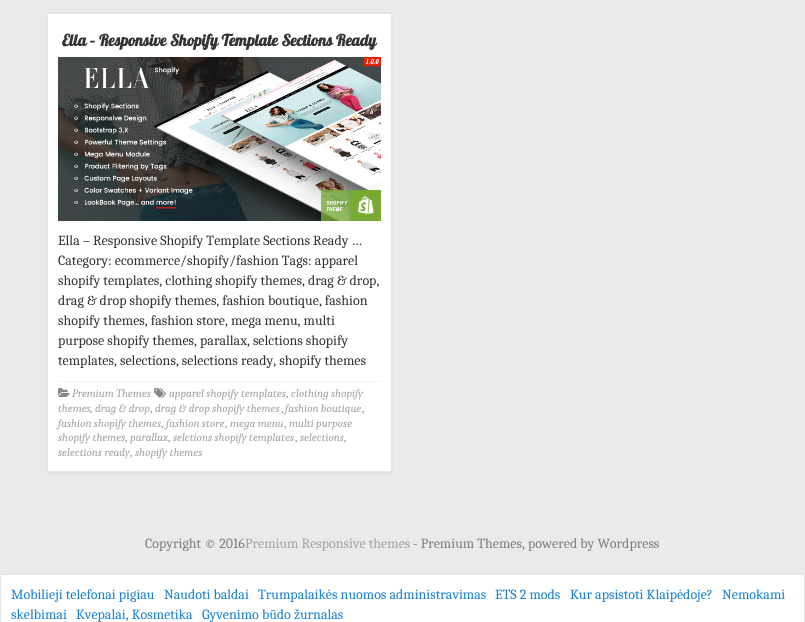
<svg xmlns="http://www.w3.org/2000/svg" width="805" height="622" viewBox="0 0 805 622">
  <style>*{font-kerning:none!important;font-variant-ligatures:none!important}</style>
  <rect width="100%" height="100%" fill="rgb(234,234,234)"/>
  <rect x="47" y="14" width="345" height="459" fill="rgba(0,0,0,0.08)" filter="blur(1.5px)"/>
  <rect x="47.5" y="13.5" width="344" height="458" fill="rgb(255,255,255)" stroke="rgb(229,229,229)"/>
  <text x="62" y="46" font-family="Lobster" font-size="16" font-weight="bold" fill="rgb(51,51,51)">Ella – Responsive Shopify Template Sections Ready</text>
  <image x="58" y="57" width="323" height="164" href="pic1.png"/>
  <g font-family="Caladea" font-size="14" fill="rgb(51,51,51)">
    <text>
      <tspan x="58" y="245">Ella – Responsive Shopify Template Sections Ready …</tspan>
      <tspan x="58" y="265">Category: ecommerce/shopify/fashion Tags: apparel</tspan>
      <tspan x="58" y="285">shopify templates, clothing shopify themes, drag &amp; drop,</tspan>
      <tspan x="58" y="305">drag &amp; drop shopify themes, fashion boutique, fashion</tspan>
      <tspan x="58" y="325">shopify themes, fashion store, mega menu, multi</tspan>
      <tspan x="58" y="345">purpose shopify themes, parallax, selctions shopify</tspan>
      <tspan x="58" y="365">templates, selections, selections ready, shopify themes</tspan>
    </text>
  </g>
  <rect x="58" y="381" width="323" height="1" fill="rgb(245,245,245)"/>
  <image x="58" y="388" width="12" height="9" href="pic2.png"/>
  <text x="72" y="397" font-family="Caladea" font-size="11.25" font-style="italic" fill="rgb(165,165,165)">Premium Themes</text>
  <image x="154" y="388" width="12" height="10" href="pic3.png"/>
  <text x="169" y="397" font-family="Caladea" font-size="11.25" font-style="italic" fill="rgb(165,165,165)">apparel shopify templates</text>
  <text x="286" y="397" font-family="Caladea" font-size="11.25" fill="rgb(136,136,136)">,</text>
  <g font-family="Caladea" font-size="11.25" font-style="italic" fill="rgb(165,165,165)">
    <text x="291" y="397">clothing shopify</text>
    <text x="58" y="412">themes</text>
  </g>
  <text x="90" y="412" font-family="Caladea" font-size="11.25" fill="rgb(136,136,136)">,</text>
  <text x="95" y="412" font-family="Caladea" font-size="11.25" font-style="italic" fill="rgb(165,165,165)">drag &amp; drop</text>
  <text x="150" y="412" font-family="Caladea" font-size="11.25" fill="rgb(136,136,136)">,</text>
  <text x="155" y="412" font-family="Caladea" font-size="11.25" font-style="italic" fill="rgb(165,165,165)">drag &amp; drop shopify themes</text>
  <text x="281" y="412" font-family="Caladea" font-size="11.25" fill="rgb(136,136,136)">,</text>
  <text x="285" y="412" font-family="Caladea" font-size="11.25" font-style="italic" fill="rgb(165,165,165)">fashion boutique</text>
  <text x="362" y="412" font-family="Caladea" font-size="11.25" fill="rgb(136,136,136)">,</text>
  <text x="58" y="427" font-family="Caladea" font-size="11.25" font-style="italic" fill="rgb(165,165,165)">fashion shopify themes</text>
  <text x="161" y="427" font-family="Caladea" font-size="11.25" fill="rgb(136,136,136)">,</text>
  <text x="166" y="427" font-family="Caladea" font-size="11.25" font-style="italic" fill="rgb(165,165,165)">fashion store</text>
  <text x="225" y="427" font-family="Caladea" font-size="11.25" fill="rgb(136,136,136)">,</text>
  <text x="230" y="427" font-family="Caladea" font-size="11.25" font-style="italic" fill="rgb(165,165,165)">mega menu</text>
  <text x="284" y="427" font-family="Caladea" font-size="11.25" fill="rgb(136,136,136)">,</text>
  <g font-family="Caladea" font-size="11.25" font-style="italic" fill="rgb(165,165,165)">
    <text x="289" y="427">multi purpose</text>
    <text x="58" y="441">shopify themes</text>
  </g>
  <text x="125" y="441" font-family="Caladea" font-size="11.25" fill="rgb(136,136,136)">,</text>
  <text x="130" y="441" font-family="Caladea" font-size="11.25" font-style="italic" fill="rgb(165,165,165)">parallax</text>
  <text x="168" y="441" font-family="Caladea" font-size="11.25" fill="rgb(136,136,136)">,</text>
  <text x="173" y="441" font-family="Caladea" font-size="11.25" font-style="italic" fill="rgb(165,165,165)">selctions shopify templates</text>
  <text x="295" y="441" font-family="Caladea" font-size="11.25" fill="rgb(136,136,136)">,</text>
  <text x="300" y="441" font-family="Caladea" font-size="11.25" font-style="italic" fill="rgb(165,165,165)">selections</text>
  <text x="344" y="441" font-family="Caladea" font-size="11.25" fill="rgb(136,136,136)">,</text>
  <g font-family="Caladea" font-size="11.25" font-style="italic" fill="rgb(165,165,165)">
    <text x="58" y="456">selections ready</text>
    <text x="135" y="456">shopify themes</text>
  </g>
  <text x="130" y="456" font-family="Caladea" font-size="11.25" fill="rgb(136,136,136)">,</text>
  <text x="145" y="548" font-family="Caladea" font-size="14" fill="rgb(127,127,127)">Copyright © 2016</text>
  <text x="245" y="548" font-family="Caladea" font-size="14" fill="rgb(165,165,165)">Premium Responsive themes</text>
  <text x="413" y="548" font-family="Caladea" font-size="14" fill="rgb(127,127,127)">- Premium Themes, powered by Wordpress</text>
  <rect x="0.5" y="574.5" width="804" height="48" fill="rgb(255,255,255)" stroke="rgb(229,229,229)"/>
  <g font-family="Caladea" font-size="14" fill="rgb(25,130,209)">
    <text x="11" y="599">Mobilieji telefonai pigiau</text>
    <text x="164" y="599">Naudoti baldai</text>
    <text x="258" y="599">Trumpalaikės nuomos administravimas</text>
    <text x="495" y="599">ETS 2 mods</text>
    <text x="570" y="599">Kur apsistoti Klaipėdoje?</text>
    <text x="722" y="599">Nemokami</text>
    <text x="11" y="619">skelbimai</text>
    <text x="76" y="619">Kvepalai, Kosmetika</text>
    <text x="202" y="619">Gyvenimo būdo žurnalas</text>
  </g>
</svg>
